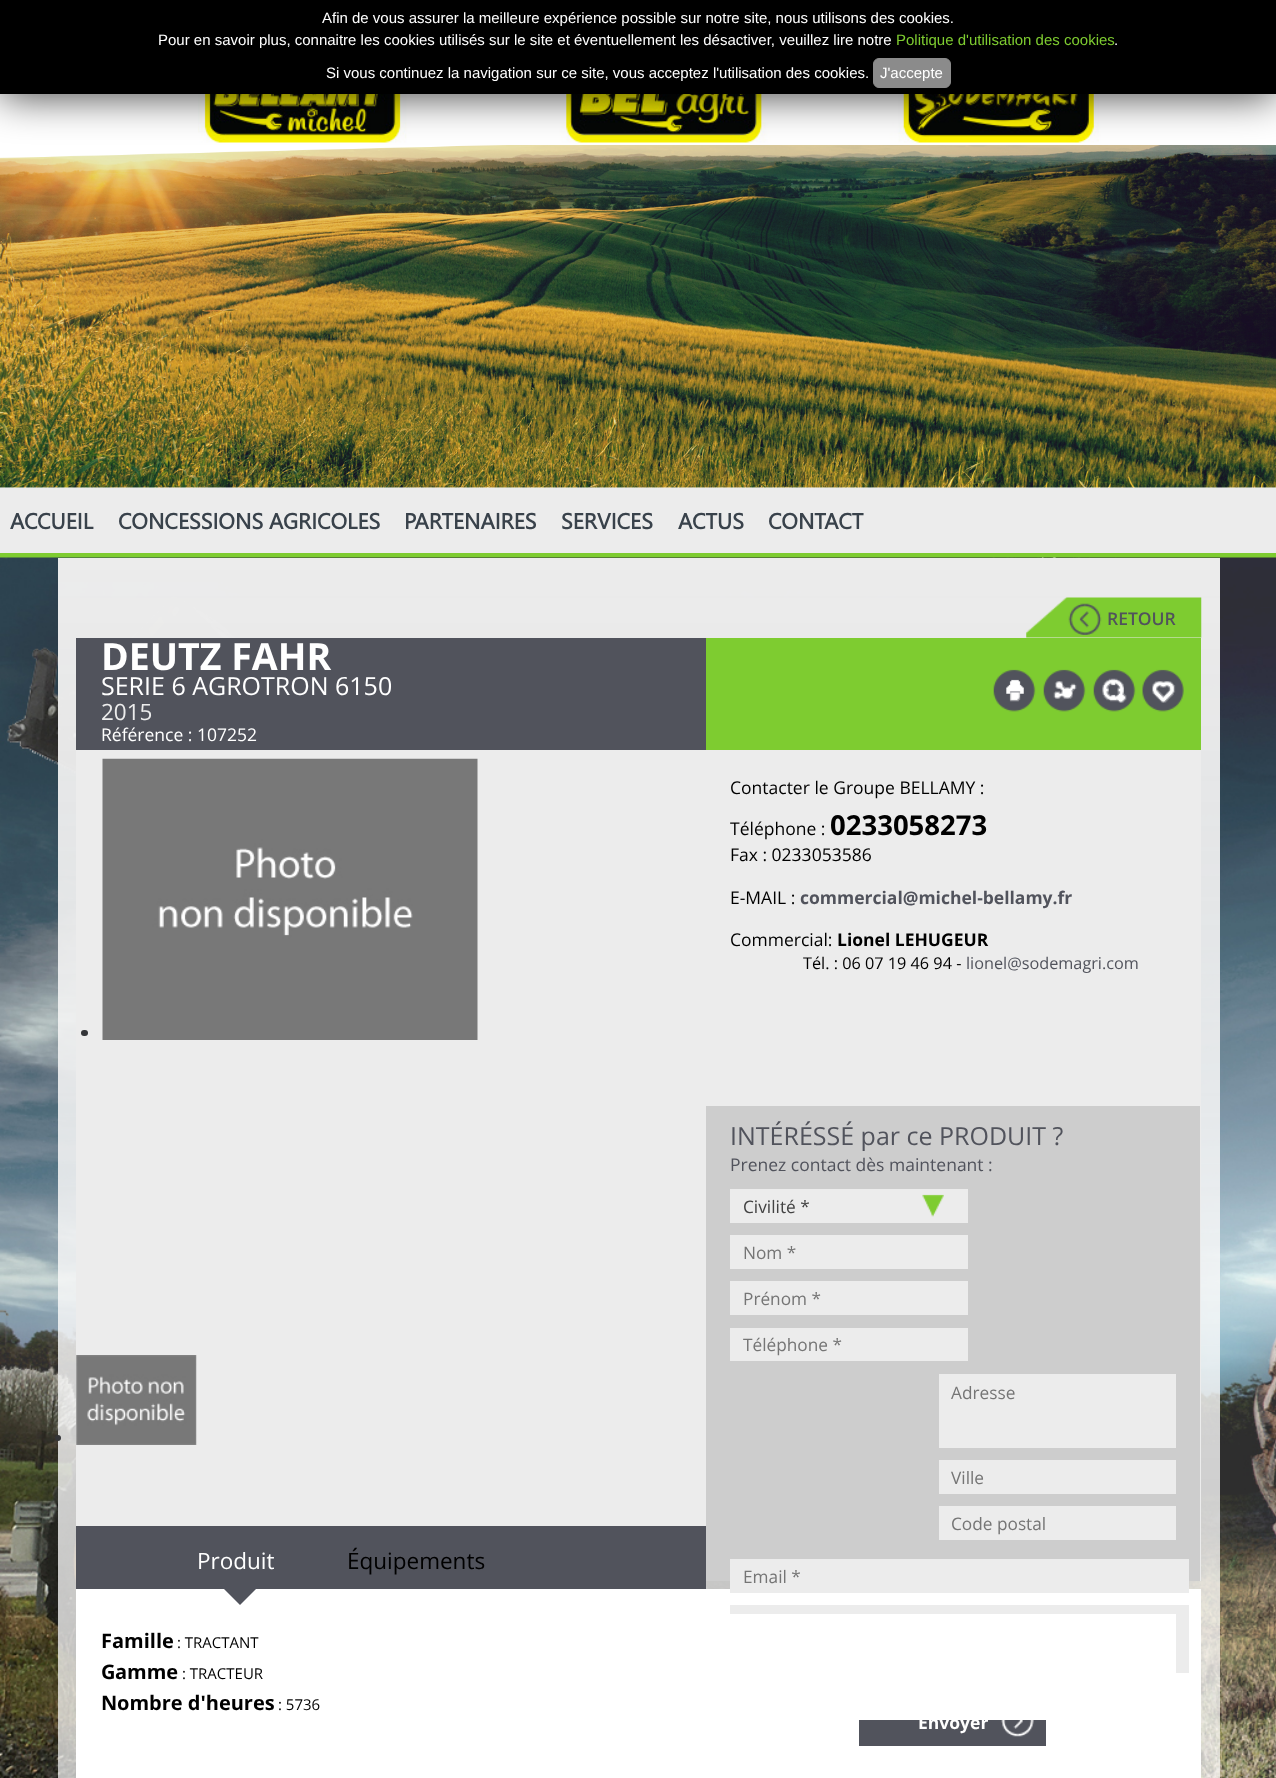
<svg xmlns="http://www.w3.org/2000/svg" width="1276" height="1778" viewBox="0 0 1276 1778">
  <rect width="100%" height="100%" fill="rgb(255,255,255)"/>
  <image x="0" y="110" width="1276" height="378" href="pic2.png"/>
  <image x="198" y="94" width="1078" height="51" href="pic1.png"/>
  <rect x="0" y="3" width="1276" height="93" fill="rgba(0,0,0,0.75)" filter="blur(21px)"/>
  <rect x="0" y="0" width="1276" height="94" fill="rgb(0,0,0)"/>
  <g font-family="Liberation Sans" font-size="15" fill="rgb(255,255,255)">
    <text x="322" y="23">Afin de vous assurer la meilleure expérience possible sur notre site, nous utilisons des cookies.</text>
    <text x="158" y="45">Pour en savoir plus, connaitre les cookies utilisés sur le site et éventuellement les désactiver, veuillez lire notre</text>
  </g>
  <text x="896" y="45" font-family="Liberation Sans" font-size="15" fill="rgb(126,204,48)">Politique d'utilisation des cookies</text>
  <g font-family="Liberation Sans" font-size="15" fill="rgb(255,255,255)">
    <text x="1114" y="45">.</text>
    <text x="326" y="78">Si vous continuez la navigation sur ce site, vous acceptez l'utilisation des cookies.</text>
  </g>
  <rect x="873.5" y="58.5" width="77" height="29" rx="5.5" fill="rgb(139,139,139)" stroke="rgb(139,139,139)"/>
  <text x="880" y="78" font-family="Liberation Sans" font-size="15" fill="rgb(255,255,255)">J'accepte</text>
  <rect x="0" y="488" width="1276" height="65" fill="rgb(236,236,236)"/>
  <rect x="0" y="553" width="1276" height="5" fill="rgb(126,204,48)"/>
  <g font-family="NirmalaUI" font-size="22" font-weight="bold" fill="rgb(57,66,75)">
    <text x="10" y="529">ACCUEIL</text>
    <text x="118" y="529">CONCESSIONS AGRICOLES</text>
    <text x="404" y="529">PARTENAIRES</text>
    <text x="561" y="529">SERVICES</text>
    <text x="678" y="529">ACTUS</text>
    <text x="768" y="529">CONTACT</text>
  </g>
  <image x="0" y="557" width="1276" height="1221" href="pic3.png"/>
  <image x="1026" y="597" width="176" height="41" href="pic4.png"/>
  <image x="1068" y="603" width="34" height="32" href="pic5.png"/>
  <text x="1107" y="625" font-family="Open Sans" font-size="17.5" font-weight="600" fill="rgb(81,83,92)">RETOUR</text>
  <rect x="76" y="750" width="630" height="776" fill="rgb(236,236,236)"/>
  <rect x="76" y="638" width="630" height="112" fill="rgb(81,83,92)"/>
  <text x="101" y="670" font-family="Open Sans" font-size="37.5" font-weight="bold" fill="rgb(255,255,255)">DEUTZ FAHR</text>
  <text x="101" y="695" font-family="Open Sans" font-size="25" fill="rgb(255,255,255)">SERIE 6 AGROTRON 6150</text>
  <text x="101" y="720" font-family="Open Sans" font-size="22.5" fill="rgb(236,236,236)">2015</text>
  <text x="101" y="741" font-family="Open Sans" font-size="17.5" fill="rgb(255,255,255)">Référence : 107252</text>
  <rect x="81" y="1030" width="7" height="6" rx="3" fill="rgb(51,53,56)"/>
  <image x="102" y="758" width="376" height="282" href="pic6.png"/>
  <circle cx="58" cy="1438" r="3" fill="rgb(51,53,56)"/>
  <image x="76" y="1355" width="121" height="90" href="pic7.png"/>
  <rect x="76" y="1526" width="630" height="63" fill="rgb(81,83,92)"/>
  <text x="197" y="1569" font-family="Open Sans" font-size="22.5" fill="rgb(255,255,255)">Produit</text>
  <rect x="76" y="1589" width="1125" height="189" fill="rgb(255,255,255)"/>
  <path d="M221 1586H259L240 1605Z" fill="rgb(81,83,92)"/>
  <text x="347" y="1569" font-family="Open Sans" font-size="22.5" fill="rgb(0,0,0)">Équipements</text>
  <rect x="706" y="750" width="495" height="831" fill="rgb(236,236,236)"/>
  <rect x="706" y="638" width="495" height="112" fill="rgb(126,204,48)"/>
  <image x="993" y="669" width="43" height="43" href="pic8.png"/>
  <image x="1043" y="669" width="43" height="43" href="pic9.png"/>
  <image x="1093" y="669" width="43" height="43" href="pic10.png"/>
  <image x="1142" y="669" width="42" height="43" href="pic11.png"/>
  <g font-family="Open Sans" font-size="17.5" fill="rgb(0,0,0)">
    <text x="730" y="794">Contacter le Groupe BELLAMY :</text>
    <text x="730" y="835">Téléphone :</text>
  </g>
  <text x="830" y="835" font-family="Open Sans" font-size="27.5" font-weight="bold" fill="rgb(0,0,0)">0233058273</text>
  <g font-family="Open Sans" font-size="17.5" fill="rgb(0,0,0)">
    <text x="730" y="861">Fax : 0233053586</text>
    <text x="730" y="904">E-MAIL :</text>
  </g>
  <text x="800" y="904" font-family="Open Sans" font-size="17.5" font-weight="bold" fill="rgb(81,83,92)">commercial@michel-bellamy.fr</text>
  <text x="730" y="946" font-family="Open Sans" font-size="17.5" fill="rgb(0,0,0)">Commercial:</text>
  <text x="837" y="946" font-family="Open Sans" font-size="17.5" font-weight="bold" fill="rgb(0,0,0)">Lionel LEHUGEUR</text>
  <text x="803" y="969" font-family="Open Sans" font-size="16.25" fill="rgb(0,0,0)">Tél. : 06 07 19 46 94 -</text>
  <text x="966" y="969" font-family="Open Sans" font-size="16.25" fill="rgb(81,83,92)">lionel@sodemagri.com</text>
  <rect x="706" y="1106" width="494" height="475" fill="rgb(205,205,205)"/>
  <text x="730" y="1145" font-family="Open Sans" font-size="25" fill="rgb(81,83,92)">INTÉRÉSSÉ par ce PRODUIT ?</text>
  <text x="730" y="1171" font-family="Open Sans" font-size="17.5" fill="rgb(81,83,92)">Prenez contact dès maintenant :</text>
  <rect x="730" y="1189" width="238" height="34" fill="rgb(236,236,236)"/>
  <image x="922" y="1194" width="22" height="23" href="pic12.png"/>
  <text x="743" y="1213" font-family="Open Sans" font-size="17.25" fill="rgb(66,66,66)">Civilité *</text>
  <rect x="730" y="1235" width="238" height="34" fill="rgb(236,236,236)"/>
  <text x="743" y="1259" font-family="Open Sans" font-size="17.25" fill="rgb(117,117,117)">Nom *</text>
  <rect x="730" y="1281" width="238" height="34" fill="rgb(236,236,236)"/>
  <text x="743" y="1305" font-family="Open Sans" font-size="17.25" fill="rgb(117,117,117)">Prénom *</text>
  <rect x="730" y="1328" width="238" height="33" fill="rgb(236,236,236)"/>
  <text x="743" y="1351" font-family="Open Sans" font-size="17.25" fill="rgb(117,117,117)">Téléphone *</text>
  <rect x="939" y="1374" width="237" height="74" fill="rgb(236,236,236)"/>
  <text x="951" y="1399" font-family="Open Sans" font-size="17.25" fill="rgb(117,117,117)">Adresse</text>
  <rect x="939" y="1460" width="237" height="34" fill="rgb(236,236,236)"/>
  <text x="951" y="1484" font-family="Open Sans" font-size="17.25" fill="rgb(117,117,117)">Ville</text>
  <rect x="939" y="1506" width="237" height="34" fill="rgb(236,236,236)"/>
  <text x="951" y="1530" font-family="Open Sans" font-size="17.25" fill="rgb(117,117,117)">Code postal</text>
  <rect x="730" y="1559" width="459" height="34" fill="rgb(236,236,236)"/>
  <text x="743" y="1583" font-family="Open Sans" font-size="17.25" fill="rgb(117,117,117)">Email *</text>
  <rect x="730" y="1605" width="459" height="68" fill="rgb(236,236,236)"/>
  <rect x="859" y="1720" width="187" height="26" fill="rgb(81,83,92)"/>
  <text x="918" y="1729" font-family="Open Sans" font-size="17.5" font-weight="bold" fill="rgb(255,255,255)">Envoyer</text>
  <image x="1001" y="1720" width="33" height="17" href="pic13.png"/>
  <rect x="730" y="1614" width="446" height="59" fill="rgb(255,255,255)"/>
  <text x="101" y="1648" font-family="Noto Sans" font-size="20" font-weight="bold" fill="rgb(0,0,0)">F</text>
  <text x="112" y="1648" font-family="Open Sans" font-size="20" font-weight="bold" fill="rgb(0,0,0)">amille</text>
  <text x="177" y="1648" font-family="Open Sans" font-size="15" fill="rgb(0,0,0)">: TRACTANT</text>
  <text x="101" y="1679" font-family="Noto Sans" font-size="20" font-weight="bold" fill="rgb(0,0,0)">G</text>
  <text x="115" y="1679" font-family="Open Sans" font-size="20" font-weight="bold" fill="rgb(0,0,0)">amme</text>
  <text x="182" y="1679" font-family="Open Sans" font-size="15" fill="rgb(0,0,0)">: TRACTEUR</text>
  <text x="101" y="1710" font-family="Noto Sans" font-size="20" font-weight="bold" fill="rgb(0,0,0)">N</text>
  <text x="117" y="1710" font-family="Open Sans" font-size="20" font-weight="bold" fill="rgb(0,0,0)">ombre d'heures</text>
  <text x="278" y="1710" font-family="Open Sans" font-size="15" fill="rgb(0,0,0)">: 5736</text>
</svg>
